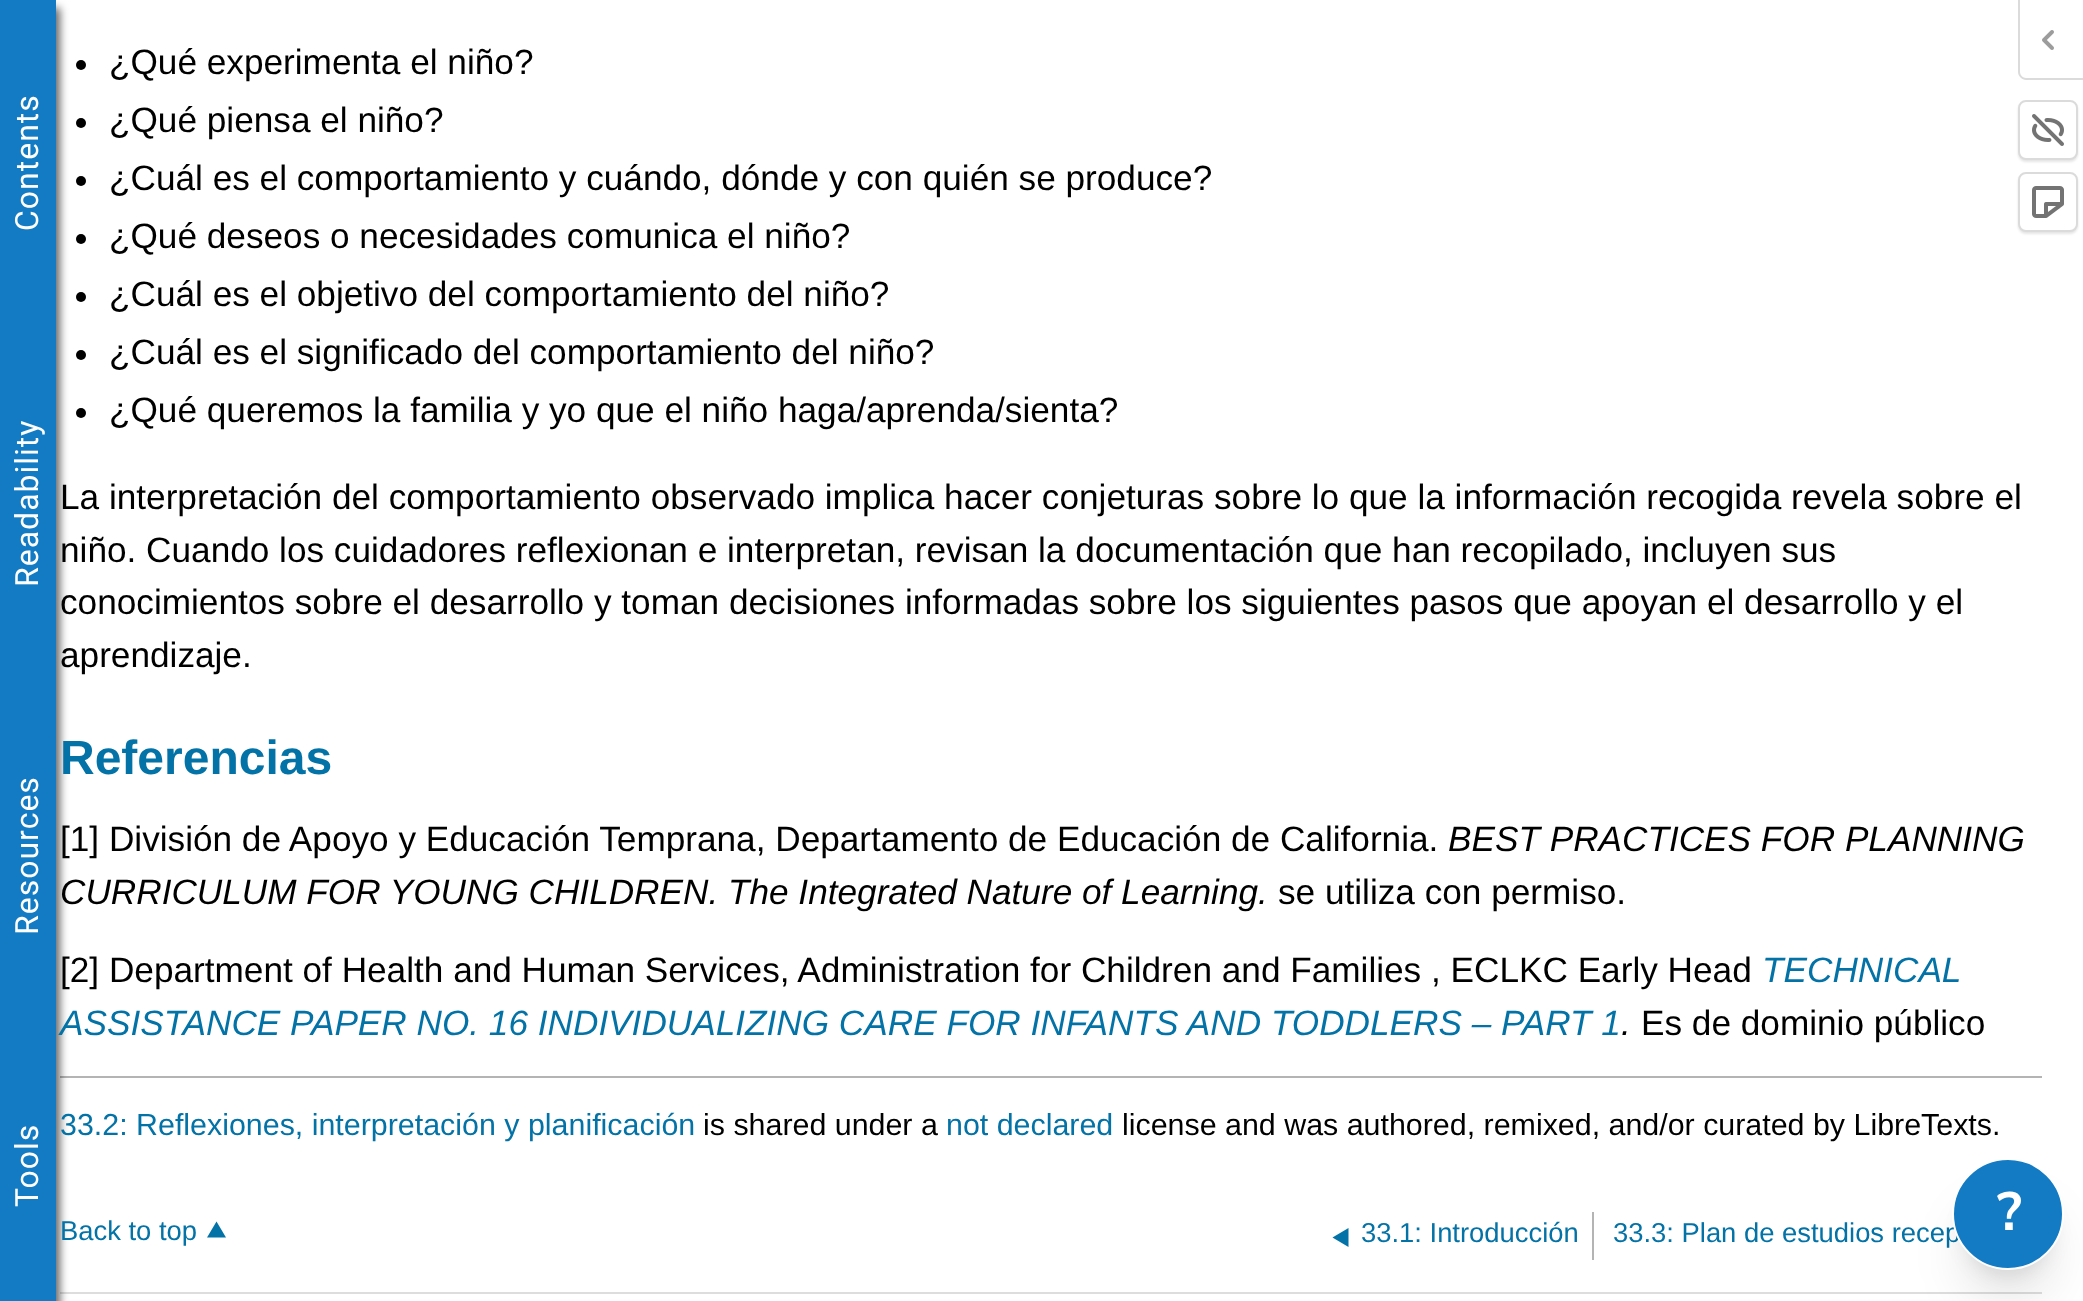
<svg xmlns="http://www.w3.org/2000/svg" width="2083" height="1301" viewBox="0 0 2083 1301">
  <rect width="100%" height="100%" fill="rgb(255,255,255)"/>
  <rect x="60" y="1076" width="1982" height="2" fill="rgb(180,180,180)"/>
  <rect x="60" y="1292" width="1982" height="2" fill="rgb(221,221,221)"/>
  <rect x="4" y="8" width="56" height="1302" fill="rgba(0,0,0,0.6)" filter="blur(4px)"/>
  <rect x="0" y="0" width="56" height="1301" fill="rgb(18,123,196)"/>
  <g font-family="Roboto" font-size="32" letter-spacing="1" fill="rgb(255,255,255)">
    <text x="38" y="231" transform="rotate(-90 38 231)">Contents</text>
    <text x="38" y="587" transform="rotate(-90 38 587)">Readability</text>
    <text x="38" y="935" transform="rotate(-90 38 935)">Resources</text>
    <text x="38" y="1207" transform="rotate(-90 38 1207)">Tools</text>
  </g>
  <circle cx="81" cy="65" r="5" fill="rgb(0,0,0)"/>
  <text x="109" y="74" font-family="Liberation Sans" font-size="35.2" fill="rgb(0,0,0)">¿Qué experimenta el niño?</text>
  <circle cx="81" cy="123" r="5" fill="rgb(0,0,0)"/>
  <text x="109" y="132" font-family="Liberation Sans" font-size="35.2" fill="rgb(0,0,0)">¿Qué piensa el niño?</text>
  <circle cx="81" cy="181" r="5" fill="rgb(0,0,0)"/>
  <text x="109" y="190" font-family="Liberation Sans" font-size="35.2" fill="rgb(0,0,0)">¿Cuál es el comportamiento y cuándo, dónde y con quién se produce?</text>
  <circle cx="81" cy="239" r="5" fill="rgb(0,0,0)"/>
  <text x="109" y="248" font-family="Liberation Sans" font-size="35.2" fill="rgb(0,0,0)">¿Qué deseos o necesidades comunica el niño?</text>
  <circle cx="81" cy="297" r="5" fill="rgb(0,0,0)"/>
  <text x="109" y="306" font-family="Liberation Sans" font-size="35.2" fill="rgb(0,0,0)">¿Cuál es el objetivo del comportamiento del niño?</text>
  <circle cx="81" cy="355" r="5" fill="rgb(0,0,0)"/>
  <text x="109" y="364" font-family="Liberation Sans" font-size="35.2" fill="rgb(0,0,0)">¿Cuál es el significado del comportamiento del niño?</text>
  <circle cx="81" cy="413" r="5" fill="rgb(0,0,0)"/>
  <g font-family="Liberation Sans" font-size="35.2" fill="rgb(0,0,0)">
    <text x="109" y="422">¿Qué queremos la familia y yo que el niño haga/aprenda/sienta?</text>
    <text>
      <tspan x="60" y="509">La interpretación del comportamiento observado implica hacer conjeturas sobre lo que la información recogida revela sobre el</tspan>
      <tspan x="60" y="562">niño. Cuando los cuidadores reflexionan e interpretan, revisan la documentación que han recopilado, incluyen sus</tspan>
      <tspan x="60" y="614">conocimientos sobre el desarrollo y toman decisiones informadas sobre los siguientes pasos que apoyan el desarrollo y el</tspan>
      <tspan x="60" y="667">aprendizaje.</tspan>
    </text>
  </g>
  <text x="60" y="774" font-family="Liberation Sans" font-size="48" font-weight="bold" fill="rgb(3,114,166)">Referencias</text>
  <text x="60" y="851" font-family="Liberation Sans" font-size="35.2" fill="rgb(0,0,0)">[1] División de Apoyo y Educación Temprana, Departamento de Educación de California.</text>
  <g font-family="Liberation Sans" font-size="35.2" font-style="italic" fill="rgb(0,0,0)">
    <text x="1448" y="851">BEST PRACTICES FOR PLANNING</text>
    <text x="60" y="904">CURRICULUM FOR YOUNG CHILDREN. The Integrated Nature of Learning.</text>
  </g>
  <g font-family="Liberation Sans" font-size="35.2" fill="rgb(0,0,0)">
    <text x="1278" y="904">se utiliza con permiso.</text>
    <text x="60" y="982">[2] Department of Health and Human Services, Administration for Children and Families , ECLKC Early Head</text>
  </g>
  <g font-family="Liberation Sans" font-size="35.2" font-style="italic" fill="rgb(3,114,166)">
    <text x="1762" y="982">TECHNICAL</text>
    <text x="60" y="1035">ASSISTANCE PAPER NO. 16 INDIVIDUALIZING CARE FOR INFANTS AND TODDLERS – PART 1</text>
  </g>
  <text x="1621" y="1035" font-family="Liberation Sans" font-size="35.2" font-style="italic" fill="rgb(0,0,0)">.</text>
  <text x="1641" y="1035" font-family="Liberation Sans" font-size="35.2" fill="rgb(0,0,0)">Es de dominio público</text>
  <text x="60" y="1135" font-family="Liberation Sans" font-size="30.4" fill="rgb(3,114,166)">33.2: Reflexiones, interpretación y planificación</text>
  <text x="703" y="1135" font-family="Liberation Sans" font-size="30.4" fill="rgb(0,0,0)">is shared under a</text>
  <text x="946" y="1135" font-family="Liberation Sans" font-size="30.4" fill="rgb(3,114,166)">not declared</text>
  <text x="1122" y="1135" font-family="Liberation Sans" font-size="30.4" fill="rgb(0,0,0)">license and was authored, remixed, and/or curated by LibreTexts.</text>
  <text x="60" y="1240" font-family="Liberation Sans" font-size="27.4" fill="rgb(3,114,166)">Back to top</text>
  <path d="M207 1237.5H226L216.5 1221.5Z" fill="rgb(3,114,166)"/>
  <rect x="1592" y="1212" width="2" height="48" fill="rgb(180,180,180)"/>
  <path d="M1348.5 1228V1247L1332.5 1237.5Z" fill="rgb(3,114,166)"/>
  <g font-family="Liberation Sans" font-size="27.4" fill="rgb(3,114,166)">
    <text x="1361" y="1242">33.1: Introducción</text>
    <text x="1613" y="1242">33.3: Plan de estudios recep</text>
  </g>
  <rect x="1964" y="1186" width="88" height="88" rx="44" fill="rgba(0,0,0,0.1)" filter="blur(10px)"/>
  <rect x="1962" y="1208" width="92" height="92" rx="46" fill="rgba(0,0,0,0.1)" filter="blur(25px)"/>
  <circle cx="2008" cy="1214" r="55" fill="rgb(18,123,196)" stroke="rgb(255,255,255)" stroke-width="2"/>
  <text x="1997" y="1230" font-family="Nunito Sans" font-size="54" font-weight="bold" fill="rgb(255,255,255)">?</text>
  <path d="M2018 0H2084V80H2026C2022 80 2018 76 2018 72ZM2020 0H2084V78H2026C2023 78 2020 75 2020 72Z" fill="rgb(219,219,219)" fill-rule="evenodd"/>
  <image x="2042" y="30" width="12" height="20" href="pic1.png"/>
  <rect x="2018" y="102" width="60" height="60" rx="8" fill="rgba(0,0,0,0.1)" filter="blur(1px)"/>
  <rect x="2019" y="101" width="58" height="58" rx="7" fill="rgb(255,255,255)" stroke="rgb(219,219,219)" stroke-width="2"/>
  <image x="2032" y="114" width="32" height="32" href="pic2.png"/>
  <rect x="2018" y="174" width="60" height="60" rx="8" fill="rgba(0,0,0,0.1)" filter="blur(1px)"/>
  <rect x="2019" y="173" width="58" height="58" rx="7" fill="rgb(255,255,255)" stroke="rgb(219,219,219)" stroke-width="2"/>
  <image x="2032" y="186" width="32" height="32" href="pic3.png"/>
</svg>
